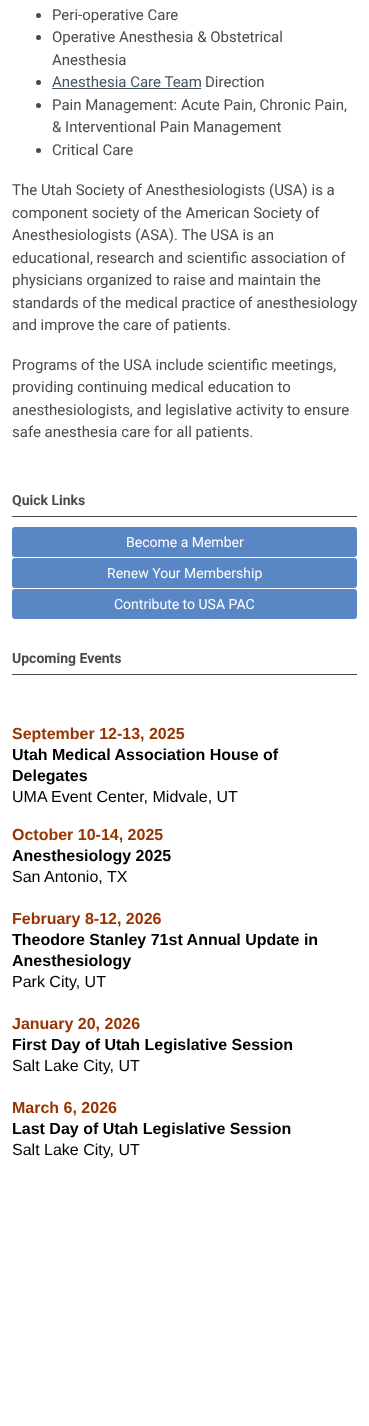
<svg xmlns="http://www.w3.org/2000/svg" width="369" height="1426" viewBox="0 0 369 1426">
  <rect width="100%" height="100%" fill="rgb(255,255,255)"/>
  <circle cx="38.5" cy="15.5" r="2.5" fill="rgb(74,74,74)"/>
  <text x="52" y="20" font-family="Roboto" font-size="15" fill="rgb(74,74,74)">Peri-operative Care</text>
  <circle cx="38.5" cy="37.5" r="2.5" fill="rgb(74,74,74)"/>
  <g font-family="Roboto" font-size="15" fill="rgb(74,74,74)">
    <text>
      <tspan x="52" y="42">Operative Anesthesia &amp; Obstetrical</tspan>
      <tspan x="52" y="65">Anesthesia</tspan>
    </text>
  </g>
  <circle cx="38.5" cy="82.5" r="2.5" fill="rgb(74,74,74)"/>
  <text x="52" y="87" font-family="Roboto" font-size="15" fill="rgb(69,85,96)">Anesthesia Care Team</text>
  <rect x="52" y="88" width="149" height="1" fill="rgb(69,85,96)"/>
  <text x="205" y="87" font-family="Roboto" font-size="15" fill="rgb(74,74,74)">Direction</text>
  <circle cx="38.5" cy="105.5" r="2.5" fill="rgb(74,74,74)"/>
  <g font-family="Roboto" font-size="15" fill="rgb(74,74,74)">
    <text>
      <tspan x="52" y="110">Pain Management: Acute Pain, Chronic Pain,</tspan>
      <tspan x="52" y="132">&amp; Interventional Pain Management</tspan>
    </text>
  </g>
  <circle cx="38.5" cy="150.5" r="2.5" fill="rgb(74,74,74)"/>
  <g font-family="Roboto" font-size="15" fill="rgb(74,74,74)">
    <text x="52" y="155">Critical Care</text>
    <text>
      <tspan x="12" y="195">The Utah Society of Anesthesiologists (USA) is a</tspan>
      <tspan x="12" y="218">component society of the American Society of</tspan>
      <tspan x="12" y="240">Anesthesiologists (ASA). The USA is an</tspan>
      <tspan x="12" y="263">educational, research and scientific association of</tspan>
      <tspan x="12" y="285">physicians organized to raise and maintain the</tspan>
      <tspan x="12" y="308">standards of the medical practice of anesthesiology</tspan>
      <tspan x="12" y="330">and improve the care of patients.</tspan>
    </text>
    <text>
      <tspan x="12" y="370">Programs of the USA include scientific meetings,</tspan>
      <tspan x="12" y="392">providing continuing medical education to</tspan>
      <tspan x="12" y="415">anesthesiologists, and legislative activity to ensure</tspan>
      <tspan x="12" y="437">safe anesthesia care for all patients.</tspan>
    </text>
  </g>
  <rect x="12" y="516" width="345" height="1" fill="rgb(74,74,74)"/>
  <text x="12" y="505" font-family="Roboto" font-size="14" font-weight="bold" fill="rgb(74,74,74)">Quick Links</text>
  <rect x="12" y="527" width="345" height="30" rx="3" fill="rgb(89,135,198)"/>
  <text x="126" y="547" font-family="Roboto" font-size="14" fill="rgb(255,255,255)">Become a Member</text>
  <rect x="12" y="558" width="345" height="30" rx="3" fill="rgb(89,135,198)"/>
  <text x="107" y="578" font-family="Roboto" font-size="14" fill="rgb(255,255,255)">Renew Your Membership</text>
  <rect x="12" y="589" width="345" height="30" rx="3" fill="rgb(89,135,198)"/>
  <text x="114" y="609" font-family="Roboto" font-size="14" fill="rgb(255,255,255)">Contribute to USA PAC</text>
  <rect x="12" y="674" width="345" height="1" fill="rgb(74,74,74)"/>
  <text x="12" y="663" font-family="Roboto" font-size="14" font-weight="bold" fill="rgb(74,74,74)">Upcoming Events</text>
  <text x="12" y="739" font-family="Liberation Sans" font-size="16" font-weight="bold" fill="rgb(153,51,0)">September 12-13, 2025</text>
  <g font-family="Liberation Sans" font-size="16" font-weight="bold" fill="rgb(0,0,0)">
    <text>
      <tspan x="12" y="760">Utah Medical Association House of</tspan>
      <tspan x="12" y="781">Delegates</tspan>
    </text>
  </g>
  <text x="12" y="802" font-family="Liberation Sans" font-size="16" fill="rgb(0,0,0)">UMA Event Center, Midvale, UT</text>
  <text x="12" y="840" font-family="Liberation Sans" font-size="16" font-weight="bold" fill="rgb(153,51,0)">October 10-14, 2025</text>
  <text x="12" y="861" font-family="Liberation Sans" font-size="16" font-weight="bold" fill="rgb(0,0,0)">Anesthesiology 2025</text>
  <text x="12" y="882" font-family="Liberation Sans" font-size="16" fill="rgb(0,0,0)">San Antonio, TX</text>
  <text x="12" y="924" font-family="Liberation Sans" font-size="16" font-weight="bold" fill="rgb(153,51,0)">February 8-12, 2026</text>
  <g font-family="Liberation Sans" font-size="16" font-weight="bold" fill="rgb(0,0,0)">
    <text>
      <tspan x="12" y="945">Theodore Stanley 71st Annual Update in</tspan>
      <tspan x="12" y="966">Anesthesiology</tspan>
    </text>
  </g>
  <text x="12" y="987" font-family="Liberation Sans" font-size="16" fill="rgb(0,0,0)">Park City, UT</text>
  <text x="12" y="1029" font-family="Liberation Sans" font-size="16" font-weight="bold" fill="rgb(153,51,0)">January 20, 2026</text>
  <text x="12" y="1050" font-family="Liberation Sans" font-size="16" font-weight="bold" fill="rgb(0,0,0)">First Day of Utah Legislative Session</text>
  <text x="12" y="1071" font-family="Liberation Sans" font-size="16" fill="rgb(0,0,0)">Salt Lake City, UT</text>
  <text x="12" y="1113" font-family="Liberation Sans" font-size="16" font-weight="bold" fill="rgb(153,51,0)">March 6, 2026</text>
  <text x="12" y="1134" font-family="Liberation Sans" font-size="16" font-weight="bold" fill="rgb(0,0,0)">Last Day of Utah Legislative Session</text>
  <text x="12" y="1155" font-family="Liberation Sans" font-size="16" fill="rgb(0,0,0)">Salt Lake City, UT</text>
</svg>
